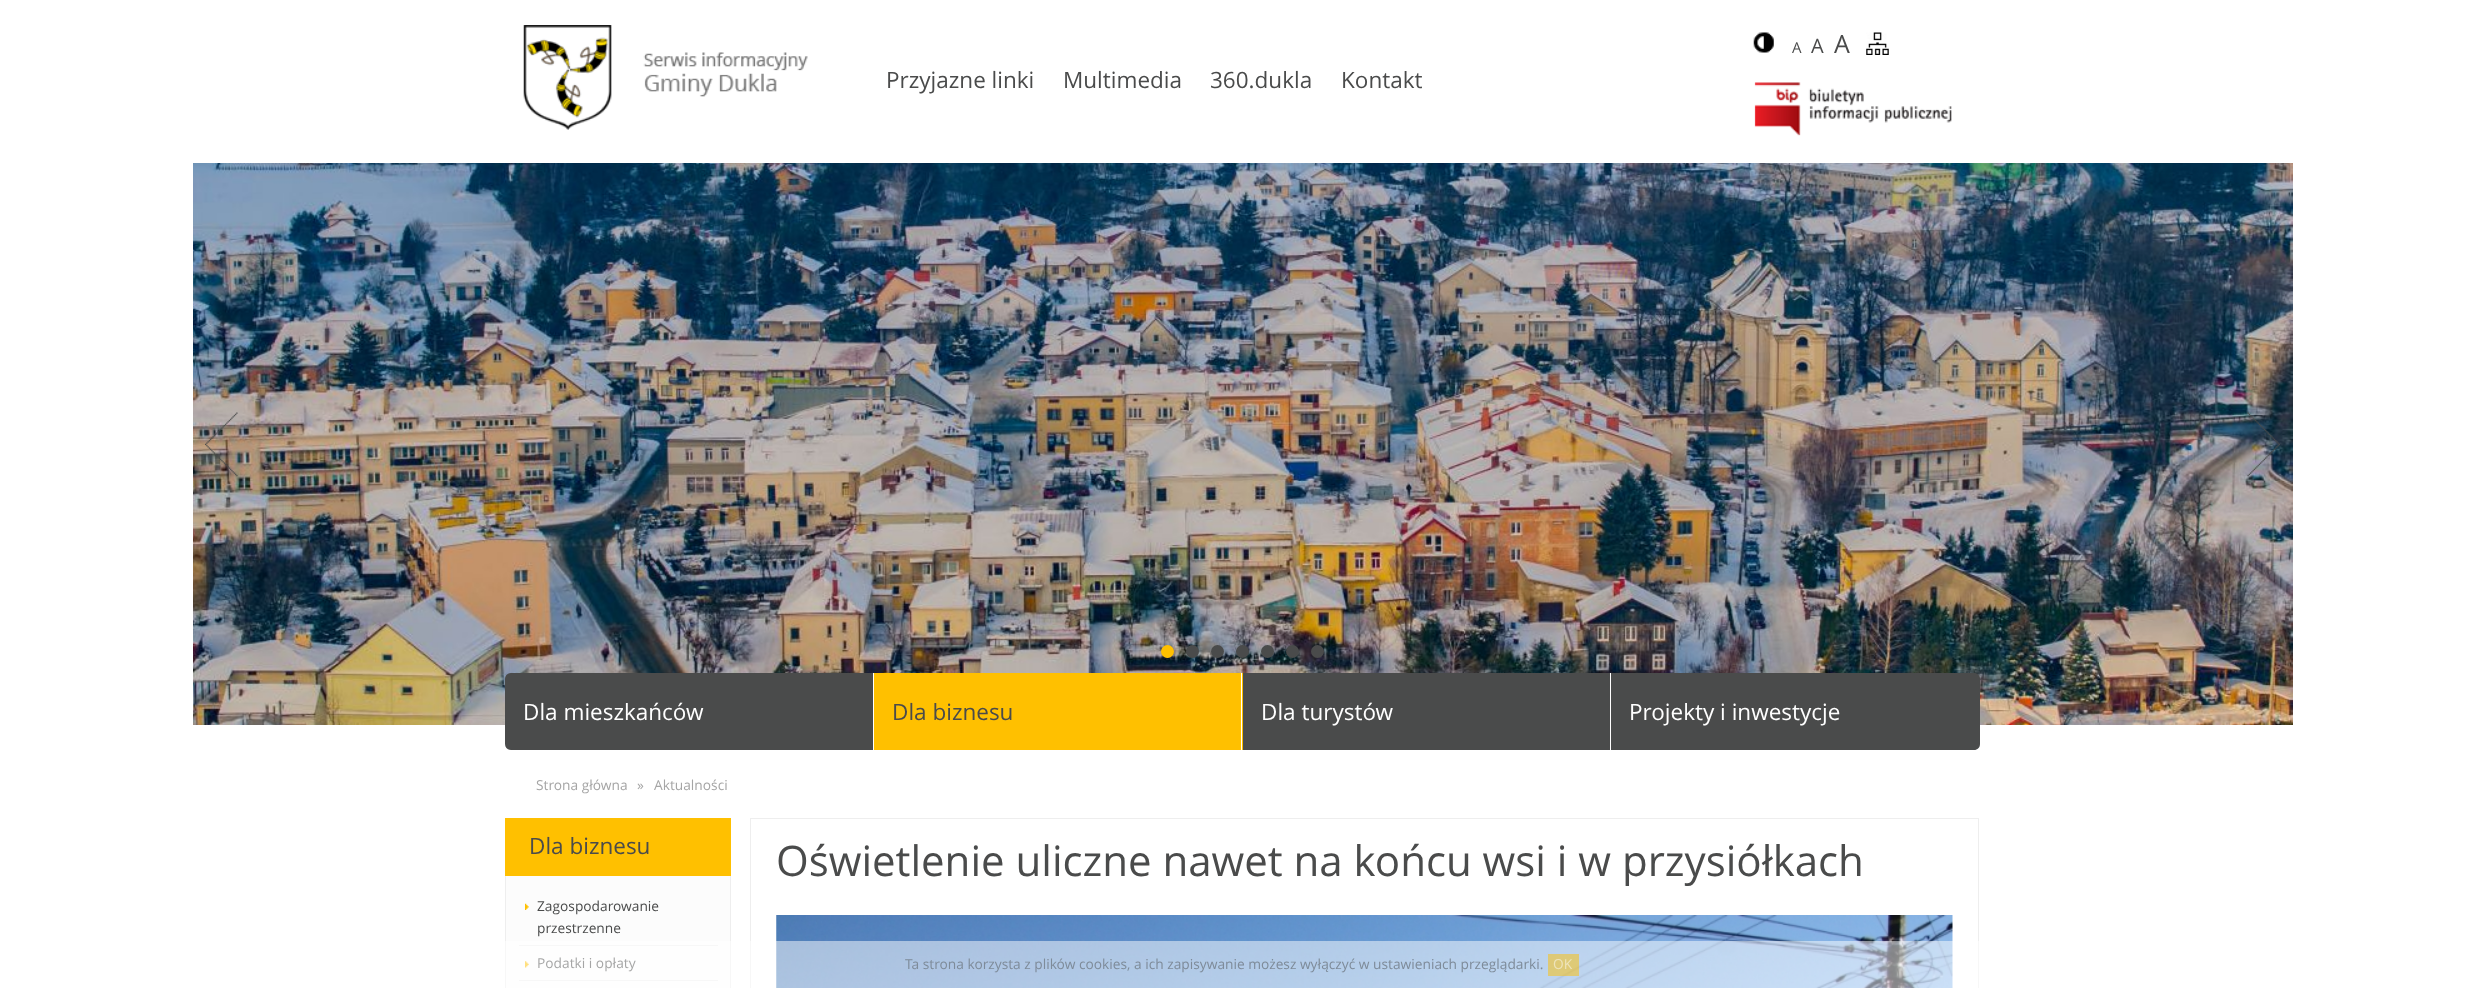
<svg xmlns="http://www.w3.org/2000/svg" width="2483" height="988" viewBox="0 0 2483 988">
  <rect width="100%" height="100%" fill="rgb(255,255,255)"/>
  <image x="523" y="25" width="285" height="105" href="pic1.png"/>
  <image x="1753" y="32" width="21" height="21" href="pic2.png"/>
  <text x="1792" y="53" font-family="Open Sans" font-size="15" fill="rgb(74,75,75)">A</text>
  <text x="1811" y="53" font-family="Open Sans" font-size="20" fill="rgb(74,75,75)">A</text>
  <text x="1834" y="53" font-family="Open Sans" font-size="25" fill="rgb(74,75,75)">A</text>
  <image x="1866" y="32" width="23" height="23" href="pic3.png"/>
  <image x="1754" y="82" width="198" height="54" href="pic4.png"/>
  <g font-family="Open Sans" font-size="22.5" fill="rgb(74,75,75)">
    <text x="886" y="88">Przyjazne linki</text>
    <text x="1063" y="88">Multimedia</text>
    <text x="1210" y="88">360.dukla</text>
    <text x="1341" y="88">Kontakt</text>
  </g>
  <image x="193" y="163" width="2100" height="562" href="pic5.png"/>
  <image x="205" y="412" width="33" height="65" href="pic6.png"/>
  <image x="2247" y="412" width="33" height="65" href="pic7.png"/>
  <circle cx="1167.5" cy="651.5" r="6.5" fill="rgb(255,192,0)"/>
  <circle cx="1192.5" cy="651.5" r="6.5" fill="rgb(74,75,75)"/>
  <circle cx="1217.5" cy="651.5" r="6.5" fill="rgb(74,75,75)"/>
  <circle cx="1242.5" cy="651.5" r="6.5" fill="rgb(74,75,75)"/>
  <circle cx="1267.5" cy="651.5" r="6.5" fill="rgb(74,75,75)"/>
  <circle cx="1292.5" cy="651.5" r="6.5" fill="rgb(74,75,75)"/>
  <circle cx="1317.5" cy="651.5" r="6.5" fill="rgb(74,75,75)"/>
  <path d="M511 673H874V750H511C507.5 750 505 747.5 505 744V679C505 675.5 507.5 673 511 673Z" fill="rgb(74,75,75)"/>
  <rect x="873" y="673" width="1" height="77" fill="rgb(255,255,255)"/>
  <text x="523" y="720" font-family="Open Sans" font-size="22.5" fill="rgb(255,255,255)">Dla mieszkańców</text>
  <rect x="874" y="673" width="369" height="77" fill="rgb(255,192,0)"/>
  <rect x="1241" y="673" width="1" height="77" fill="rgb(255,255,255)"/>
  <text x="892" y="720" font-family="Open Sans" font-size="22.5" fill="rgb(74,75,75)">Dla biznesu</text>
  <rect x="1243" y="673" width="367" height="77" fill="rgb(74,75,75)"/>
  <rect x="1610" y="673" width="1" height="52" fill="rgb(255,255,255)"/>
  <text x="1261" y="720" font-family="Open Sans" font-size="22.5" fill="rgb(255,255,255)">Dla turystów</text>
  <path d="M1611 673H1974C1977.5 673 1980 675.5 1980 679V744C1980 747.5 1977.5 750 1974 750H1611Z" fill="rgb(74,75,75)"/>
  <text x="1629" y="720" font-family="Open Sans" font-size="22.5" fill="rgb(255,255,255)">Projekty i inwestycje</text>
  <g font-family="Open Sans" font-size="13.75" fill="rgb(165,165,165)">
    <text x="536" y="790">Strona główna</text>
    <text x="637" y="790">»</text>
    <text x="654" y="790">Aktualności</text>
  </g>
  <rect x="506" y="876" width="224" height="112" fill="rgb(252,252,252)"/>
  <rect x="505.5" y="818.5" width="225" height="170" fill="none" stroke="rgb(238,238,238)"/>
  <rect x="505" y="818" width="226" height="58" fill="rgb(255,192,0)"/>
  <text x="529" y="854" font-family="Open Sans" font-size="22.5" fill="rgb(74,75,75)">Dla biznesu</text>
  <image x="525" y="903" width="4" height="7" href="pic8.png"/>
  <g font-family="Open Sans" font-size="13.75" fill="rgb(74,75,75)">
    <text>
      <tspan x="537" y="911">Zagospodarowanie</tspan>
      <tspan x="537" y="933">przestrzenne</tspan>
    </text>
  </g>
  <rect x="519" y="945" width="199" height="1" fill="rgb(238,238,238)"/>
  <image x="525" y="961" width="4" height="7" href="pic9.png"/>
  <text x="537" y="968" font-family="Open Sans" font-size="13.75" fill="rgb(74,75,75)">Podatki i opłaty</text>
  <rect x="519" y="980" width="199" height="1" fill="rgb(238,238,238)"/>
  <rect x="750.5" y="818.5" width="1228" height="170" fill="none" stroke="rgb(238,238,238)"/>
  <text x="776" y="876" font-family="Open Sans" font-size="42" fill="rgb(74,75,75)">Oświetlenie uliczne nawet na końcu wsi i w przysiółkach</text>
  <image x="776" y="915" width="1177" height="73" href="pic10.png"/>
  <rect x="505" y="941" width="1474" height="47" fill="rgba(255,255,255,0.5)"/>
  <text x="905" y="969" font-family="Open Sans" font-size="13.75" fill="rgb(126,139,153)">Ta strona korzysta z plików cookies, a ich zapisywanie możesz wyłączyć w ustawieniach przeglądarki.</text>
  <rect x="1548" y="954" width="31" height="22" fill="rgba(255,192,0,0.5)"/>
  <text x="1553" y="969" font-family="Open Sans" font-size="13.75" fill="rgb(238,228,187)">OK</text>
</svg>
